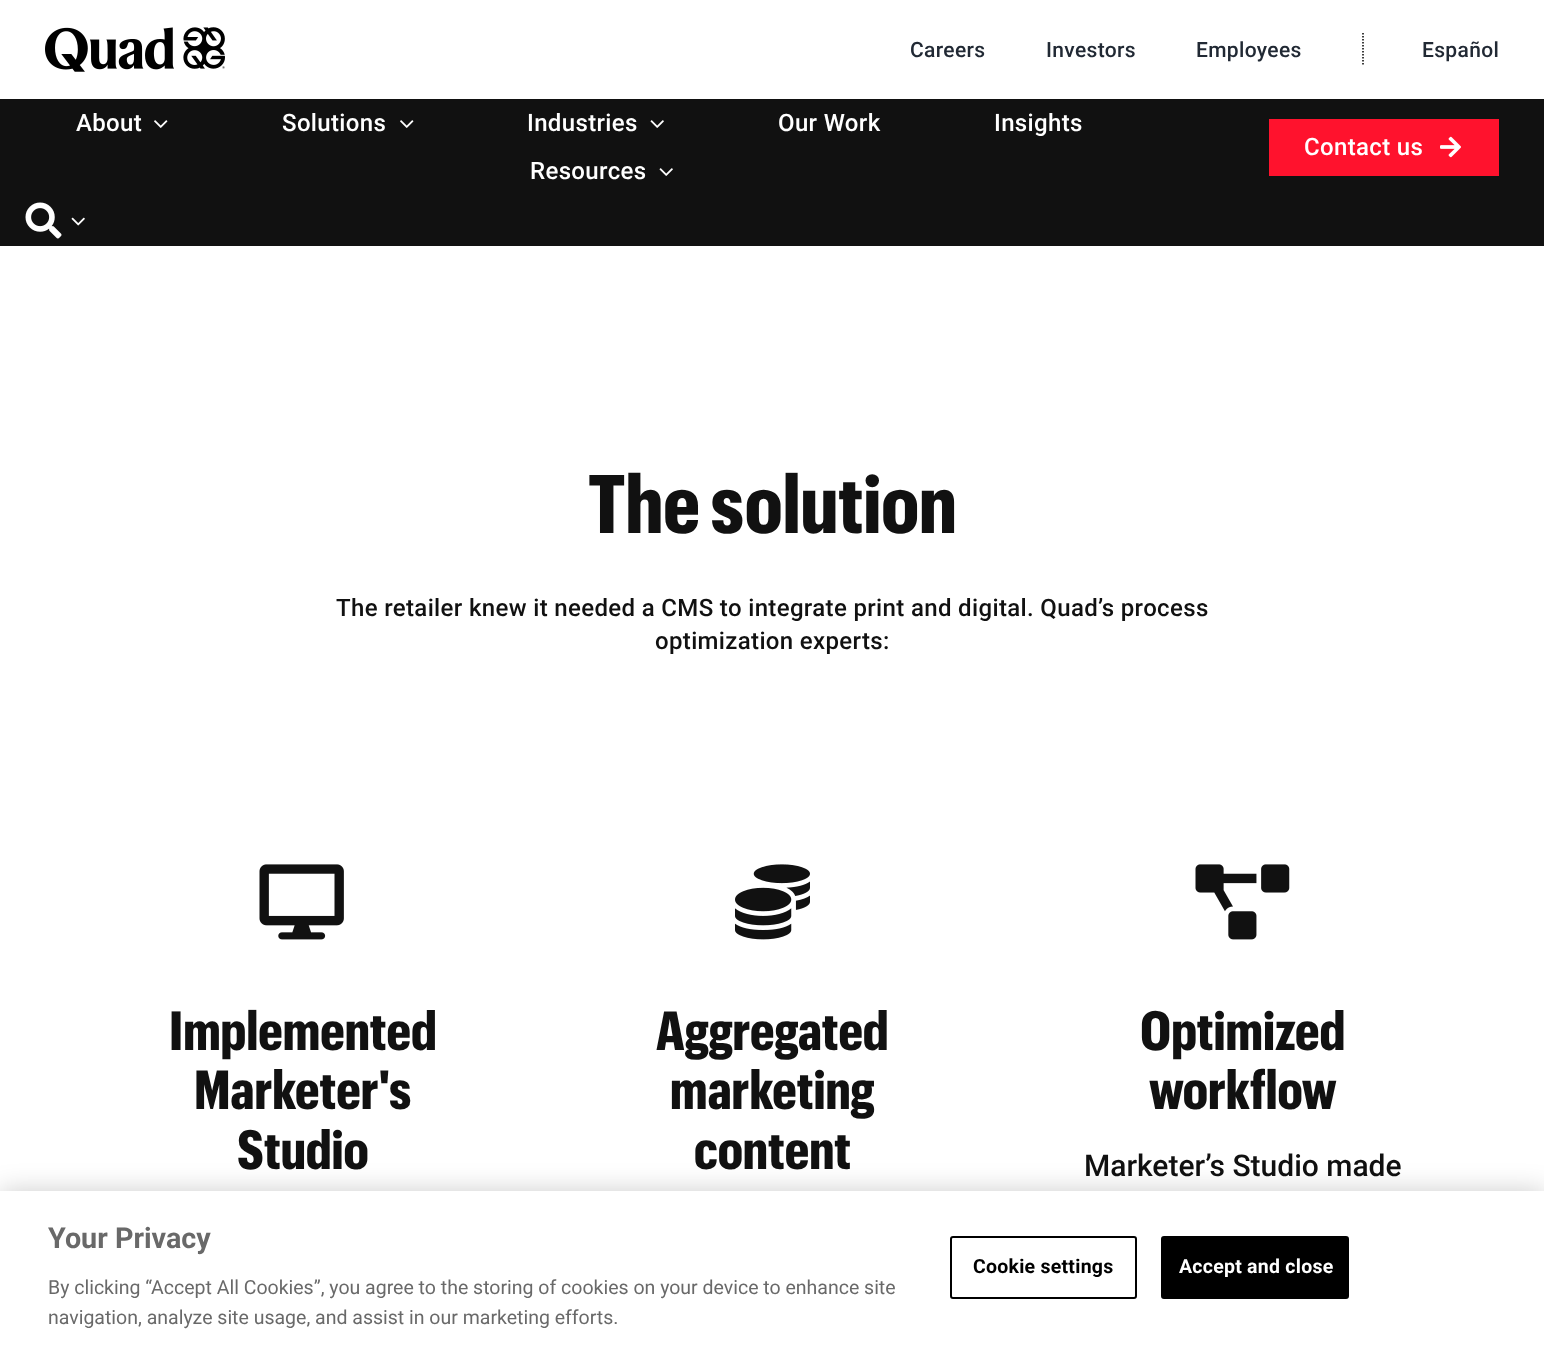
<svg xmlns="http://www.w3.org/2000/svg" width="1544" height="1346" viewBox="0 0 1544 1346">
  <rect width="100%" height="100%" fill="rgb(255,255,255)"/>
  <image x="45" y="27" width="180" height="45" href="pic1.png"/>
  <g font-family="Roboto" font-size="21" font-weight="500" letter-spacing="0.35" fill="rgb(33,41,52)">
    <text x="910" y="57">Careers</text>
    <text x="1046" y="57">Investors</text>
    <text x="1196" y="57">Employees</text>
  </g>
  <path d="M1363 33V66" fill="none" stroke="rgb(0,0,0)" stroke-width="1.5" stroke-dasharray="1.5 1.5"/>
  <text x="1422" y="57" font-family="Roboto" font-size="21" font-weight="500" letter-spacing="0.35" fill="rgb(33,41,52)">Español</text>
  <rect x="0" y="99" width="1544" height="147" fill="rgb(17,17,17)"/>
  <text x="76" y="131" font-family="Roboto" font-size="24" font-weight="500" letter-spacing="0.35" fill="rgb(255,255,255)">About</text>
  <image x="154" y="120" width="14" height="8" href="pic2.png"/>
  <text x="282" y="131" font-family="Roboto" font-size="24" font-weight="500" letter-spacing="0.35" fill="rgb(255,255,255)">Solutions</text>
  <image x="400" y="120" width="14" height="8" href="pic2.png"/>
  <text x="527" y="131" font-family="Roboto" font-size="24" font-weight="500" letter-spacing="0.35" fill="rgb(255,255,255)">Industries</text>
  <image x="650" y="120" width="14" height="8" href="pic3.png"/>
  <g font-family="Roboto" font-size="24" font-weight="500" letter-spacing="0.35" fill="rgb(255,255,255)">
    <text x="778" y="131">Our Work</text>
    <text x="994" y="131">Insights</text>
    <text x="530" y="179">Resources</text>
  </g>
  <image x="659" y="168" width="14" height="8" href="pic3.png"/>
  <rect x="1269" y="119" width="230" height="57" fill="rgb(255,18,45)"/>
  <text x="1304" y="155" font-family="Roboto" font-size="24" font-weight="500" letter-spacing="0.35" fill="rgb(255,255,255)">Contact us</text>
  <image x="1440" y="136" width="21" height="22" href="pic4.png"/>
  <image x="25" y="202" width="37" height="37" href="pic5.png"/>
  <image x="71" y="217" width="14" height="9" href="pic6.png"/>
  <text x="588" y="533" font-family="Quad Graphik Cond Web" font-size="81" font-weight="bold" fill="rgb(17,17,17)">The solution</text>
  <g font-family="Roboto" font-size="24" font-weight="500" letter-spacing="0.35" fill="rgb(17,17,17)">
    <text x="336" y="616">The retailer knew it needed a CMS to integrate print and digital. Quad’s process</text>
    <text x="655" y="649">optimization experts:</text>
  </g>
  <image x="259" y="864" width="85" height="76" href="pic7.png"/>
  <g font-family="Quad Graphik Cond Web" font-size="54" font-weight="bold" fill="rgb(17,17,17)">
    <text x="169" y="1050">Implemented</text>
    <text x="194" y="1109">Marketer's</text>
    <text x="237" y="1169">Studio</text>
  </g>
  <image x="735" y="864" width="75" height="76" href="pic8.png"/>
  <g font-family="Quad Graphik Cond Web" font-size="54" font-weight="bold" fill="rgb(17,17,17)">
    <text x="656" y="1050">Aggregated</text>
    <text x="670" y="1109">marketing</text>
    <text x="694" y="1169">content</text>
  </g>
  <image x="1195" y="864" width="95" height="76" href="pic9.png"/>
  <g font-family="Quad Graphik Cond Web" font-size="54" font-weight="bold" fill="rgb(17,17,17)">
    <text x="1140" y="1050">Optimized</text>
    <text x="1149" y="1109">workflow</text>
  </g>
  <text x="1084" y="1176" font-family="Roboto" font-size="30" font-weight="500" fill="rgb(17,17,17)">Marketer’s Studio made</text>
  <rect x="0" y="1191" width="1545" height="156" fill="rgba(0,0,0,0.2)" filter="blur(13.5px)"/>
  <rect x="0" y="1191" width="1544" height="155" fill="rgb(255,255,255)"/>
  <text x="48" y="1248" font-family="Roboto" font-size="28.75" font-weight="bold" fill="rgb(105,105,105)">Your Privacy</text>
  <g font-family="Roboto" font-size="19.5" fill="rgb(105,105,105)">
    <text>
      <tspan x="48" y="1294">By clicking “Accept All Cookies”, you agree to the storing of cookies on your device to enhance site</tspan>
      <tspan x="48" y="1324">navigation, analyze site usage, and assist in our marketing efforts.</tspan>
    </text>
  </g>
  <rect x="951" y="1237" width="185" height="61" rx="2" fill="none" stroke="rgb(0,0,0)" stroke-width="2"/>
  <text x="973" y="1273" font-family="Roboto" font-size="19.5" font-weight="bold" letter-spacing="0.25" fill="rgb(0,0,0)">Cookie settings</text>
  <rect x="1162" y="1237" width="186" height="61" rx="2" fill="rgb(0,0,0)" stroke="rgb(0,0,0)" stroke-width="2"/>
  <text x="1179" y="1273" font-family="Roboto" font-size="19.5" font-weight="bold" letter-spacing="0.25" fill="rgb(255,255,255)">Accept and close</text>
</svg>
